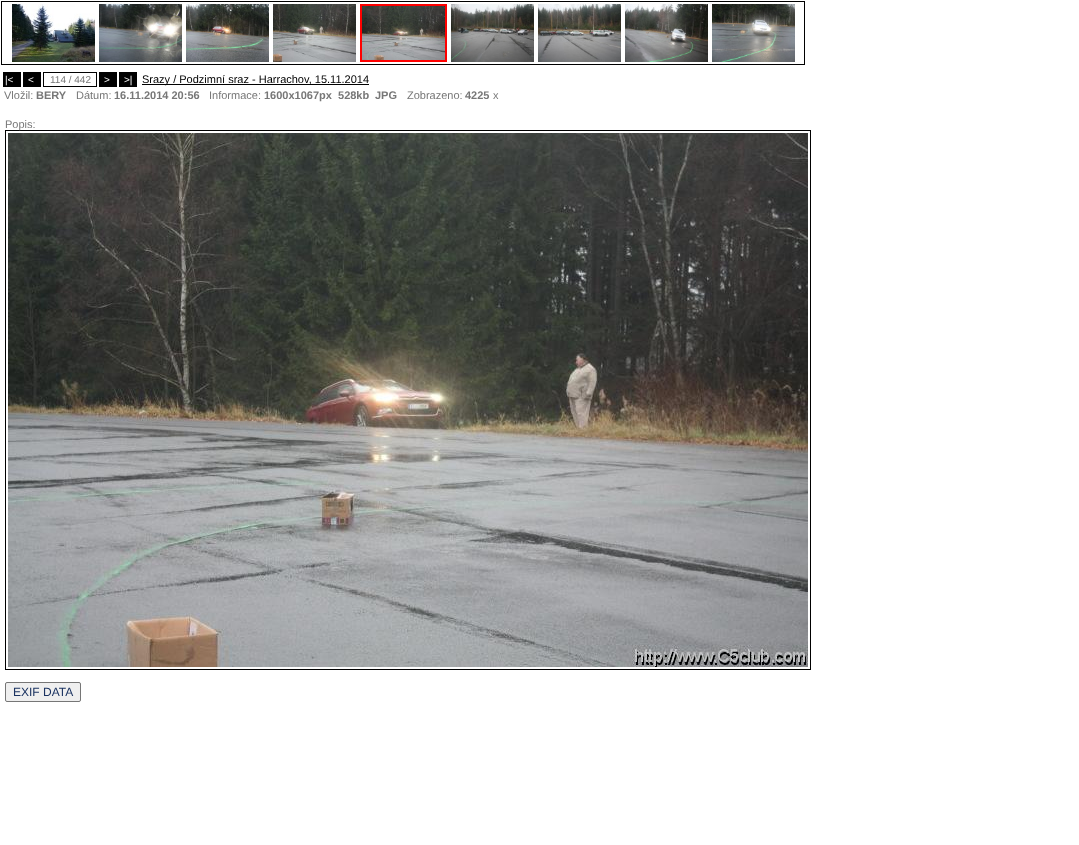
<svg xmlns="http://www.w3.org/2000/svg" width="1079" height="845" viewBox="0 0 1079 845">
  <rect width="100%" height="100%" fill="rgb(255,255,255)"/>
  <rect x="1.5" y="1.5" width="803" height="63" fill="none" stroke="rgb(0,0,0)"/>
  <image x="12" y="4" width="83" height="58" href="pic1.png"/>
  <image x="99" y="4" width="83" height="58" href="pic2.png"/>
  <image x="186" y="4" width="83" height="58" href="pic3.png"/>
  <image x="273" y="4" width="83" height="58" href="pic4.png"/>
  <rect x="361" y="5" width="85" height="56" fill="none" stroke="rgb(255,0,0)" stroke-width="2"/>
  <image x="451" y="4" width="83" height="58" href="pic5.png"/>
  <image x="538" y="4" width="83" height="58" href="pic6.png"/>
  <image x="625" y="4" width="83" height="58" href="pic7.png"/>
  <image x="712" y="4" width="83" height="58" href="pic8.png"/>
  <image x="362" y="6" width="83" height="54" href="pic9.png"/>
  <rect x="3" y="72" width="18" height="15" fill="rgb(0,0,0)"/>
  <text x="5" y="83" font-family="Liberation Sans" font-size="10" fill="rgb(255,255,255)">|&lt;</text>
  <rect x="23" y="72" width="18" height="15" fill="rgb(0,0,0)"/>
  <text x="28" y="83" font-family="Liberation Sans" font-size="10" fill="rgb(255,255,255)">&lt;</text>
  <rect x="43.5" y="72.5" width="53" height="14" fill="none" stroke="rgb(0,0,0)"/>
  <text x="50" y="83" font-family="Liberation Sans" font-size="10" fill="rgb(119,119,119)">114 / 442</text>
  <rect x="99" y="72" width="18" height="15" fill="rgb(0,0,0)"/>
  <text x="104" y="83" font-family="Liberation Sans" font-size="10" fill="rgb(255,255,255)">&gt;</text>
  <rect x="119" y="72" width="18" height="15" fill="rgb(0,0,0)"/>
  <text x="124" y="83" font-family="Liberation Sans" font-size="10" fill="rgb(255,255,255)">&gt;|</text>
  <rect x="142" y="84" width="227" height="1" fill="rgb(0,0,0)"/>
  <text x="142" y="83" font-family="Liberation Sans" font-size="11" fill="rgb(0,0,0)">Srazy / Podzimní sraz - Harrachov, 15.11.2014</text>
  <text x="4" y="99" font-family="Liberation Sans" font-size="11" fill="rgb(119,119,119)">Vložil:</text>
  <text x="36" y="99" font-family="Liberation Sans" font-size="11" font-weight="bold" fill="rgb(119,119,119)">BERY</text>
  <text x="76" y="99" font-family="Liberation Sans" font-size="11" fill="rgb(119,119,119)">Dátum:</text>
  <text x="114" y="99" font-family="Liberation Sans" font-size="11" font-weight="bold" fill="rgb(119,119,119)">16.11.2014 20:56</text>
  <text x="209" y="99" font-family="Liberation Sans" font-size="11" fill="rgb(119,119,119)">Informace:</text>
  <g font-family="Liberation Sans" font-size="11" font-weight="bold" fill="rgb(119,119,119)">
    <text x="264" y="99" xml:space="preserve">1600x1067px  528kb</text>
    <text x="375" y="99">JPG</text>
  </g>
  <text x="407" y="99" font-family="Liberation Sans" font-size="11" fill="rgb(119,119,119)">Zobrazeno:</text>
  <text x="465" y="99" font-family="Liberation Sans" font-size="11" font-weight="bold" fill="rgb(119,119,119)">4225</text>
  <text x="493" y="99" font-family="Liberation Sans" font-size="11" fill="rgb(119,119,119)">x</text>
  <rect x="5.5" y="130.5" width="805" height="539" fill="none" stroke="rgb(0,0,0)"/>
  <text x="5" y="128" font-family="Liberation Sans" font-size="11" fill="rgb(119,119,119)">Popis:</text>
  <image x="8" y="133" width="800" height="534" href="pic10.png"/>
  <rect x="5.5" y="682.5" width="75" height="19" rx="1.5" fill="rgb(239,239,239)" stroke="rgb(118,118,118)"/>
  <text x="13" y="696" font-family="Liberation Sans" font-size="12" fill="rgb(27,51,97)">EXIF DATA</text>
</svg>
